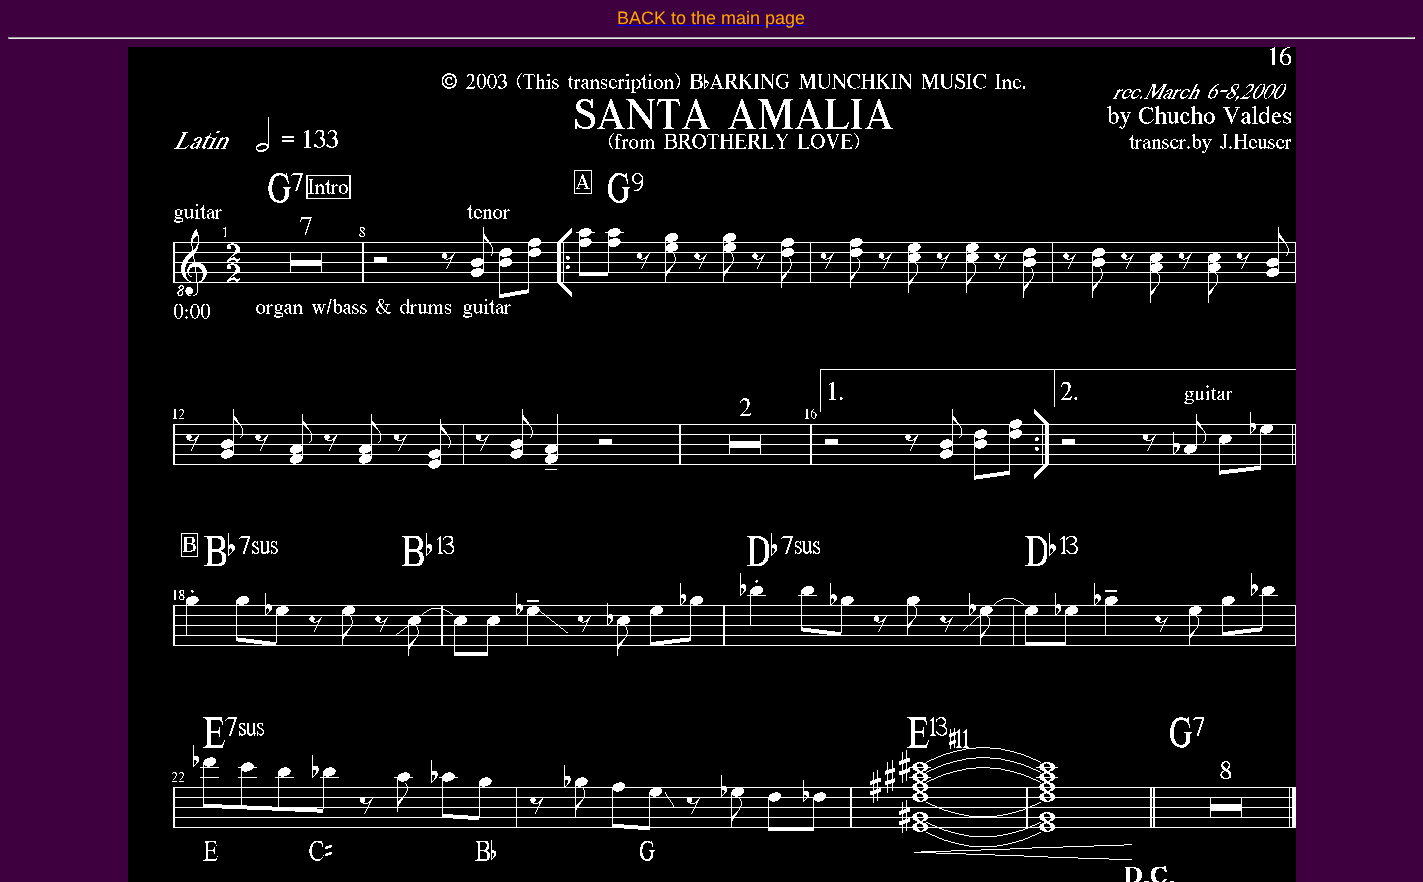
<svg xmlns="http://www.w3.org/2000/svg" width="1423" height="882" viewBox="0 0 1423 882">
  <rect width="100%" height="100%" fill="rgb(62,0,62)"/>
  <rect x="617" y="25" width="189" height="1" fill="rgb(0,0,238)"/>
  <text x="617" y="24" font-family="Liberation Sans" font-size="18" fill="rgb(255,165,0)">BACK to the main page</text>
  <rect x="8" y="37" width="1407" height="1" fill="rgb(159,159,159)"/>
  <rect x="1414" y="37" width="1" height="2" fill="rgb(238,238,238)"/>
  <rect x="8" y="38" width="1407" height="1" fill="rgb(238,238,238)"/>
  <rect x="8" y="37" width="1" height="2" fill="rgb(159,159,159)"/>
  <image x="128" y="47" width="1168" height="835" href="pic1.png"/>
</svg>
